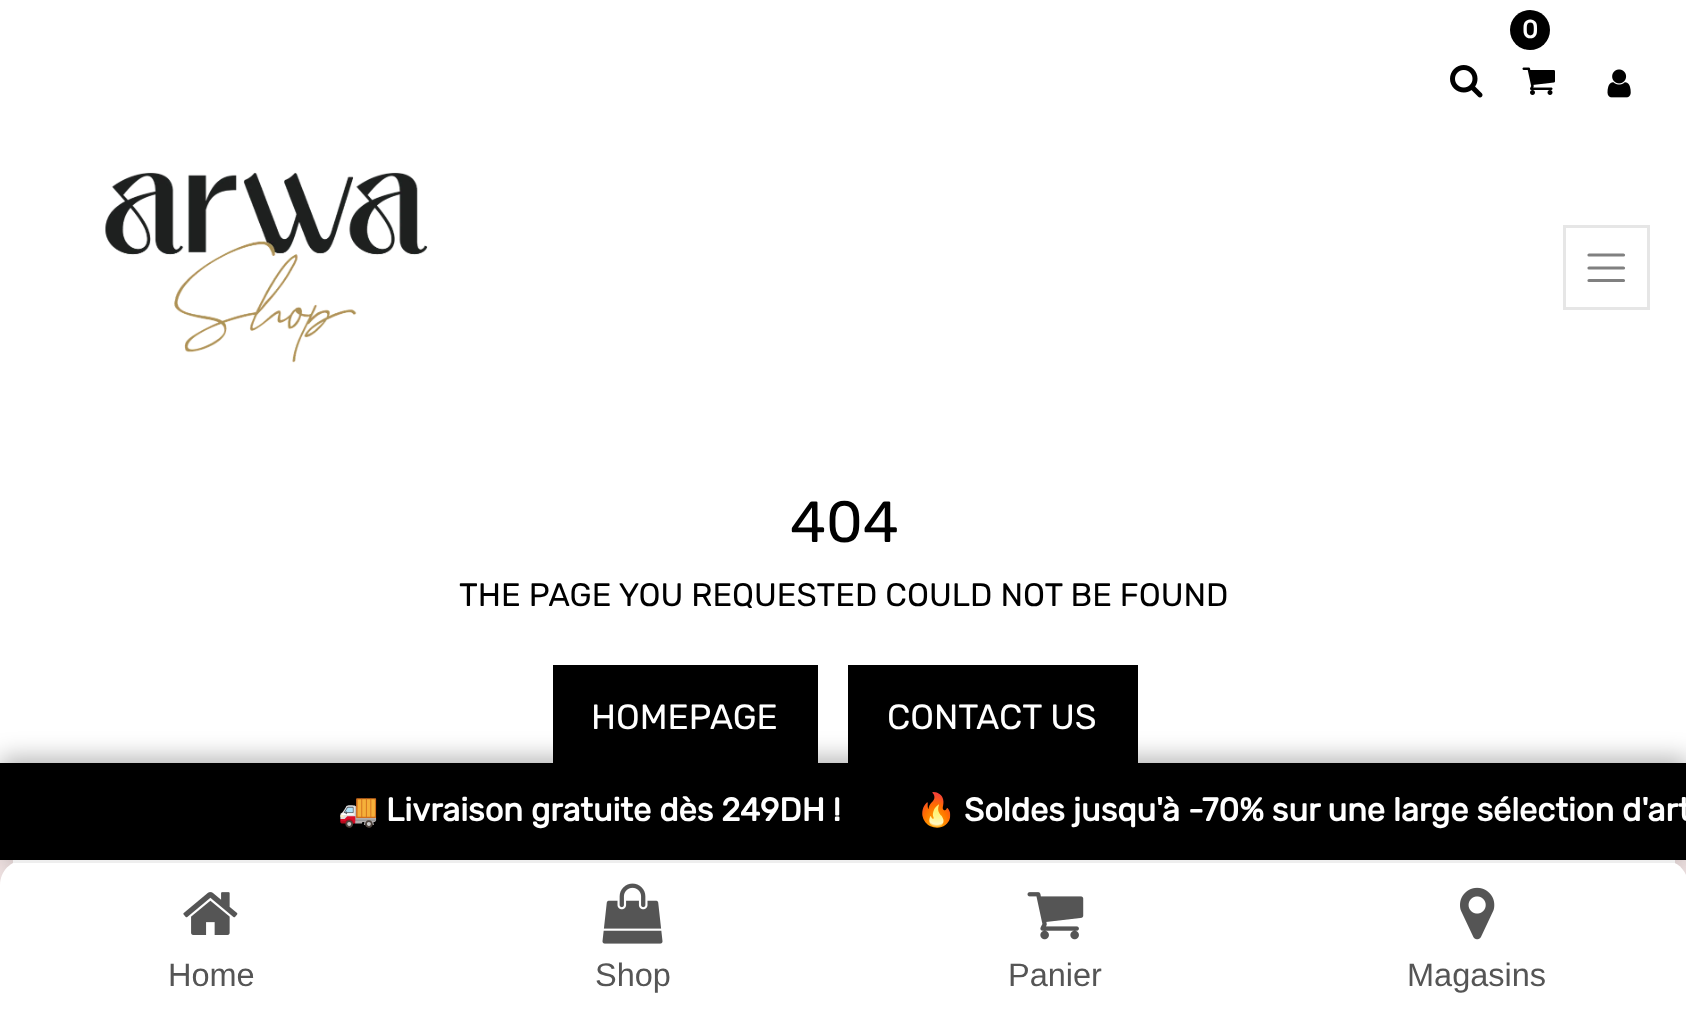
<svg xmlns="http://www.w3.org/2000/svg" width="1686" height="1020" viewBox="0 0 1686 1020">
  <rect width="100%" height="100%" fill="rgb(255,255,255)"/>
  <circle cx="1530" cy="30" r="20" fill="rgb(0,0,0)"/>
  <text x="1522" y="38" font-family="Rubik" font-size="25" font-weight="bold" fill="rgb(255,255,255)">0</text>
  <image x="1522" y="67" width="33" height="28" href="pic1.png"/>
  <image x="1450" y="65" width="33" height="33" href="pic2.png"/>
  <image x="1607" y="69" width="24" height="29" href="pic3.png"/>
  <image x="105" y="172" width="323" height="191" href="pic4.png"/>
  <rect x="1564.5" y="226.5" width="84" height="82" fill="none" stroke="rgb(230,230,230)" stroke-width="3"/>
  <path d="M1589 255H1623.5M1589 268H1623.5M1589 280.5H1623.5" fill="none" stroke="rgb(128,128,128)" stroke-width="3.2" stroke-linecap="round"/>
  <text x="790" y="542" font-family="Rubik" font-size="58" font-weight="300" fill="rgb(0,0,0)">404</text>
  <text x="459" y="606" font-family="Rubik" font-size="32.5" font-weight="300" fill="rgb(0,0,0)">THE PAGE YOU REQUESTED COULD NOT BE FOUND</text>
  <rect x="553" y="665" width="265" height="98" fill="rgb(0,0,0)"/>
  <text x="591" y="729" font-family="Rubik" font-size="35" font-weight="300" fill="rgb(255,255,255)">HOMEPAGE</text>
  <rect x="848" y="665" width="290" height="98" fill="rgb(0,0,0)"/>
  <text x="887" y="729" font-family="Rubik" font-size="35" font-weight="300" fill="rgb(255,255,255)">CONTACT US</text>
  <rect x="0" y="860" width="1686" height="25" fill="rgb(247,233,233)"/>
  <rect x="0" y="758" width="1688" height="97" fill="rgba(0,0,0,0.3)" filter="blur(12.5px)"/>
  <rect x="0" y="763" width="1686" height="97" fill="rgb(0,0,0)"/>
  <text x="338" y="821" font-family="Noto Color Emoji" font-size="32.5" font-weight="bold" fill="rgb(255,255,255)">🚚</text>
  <text x="386" y="821" font-family="Rubik" font-size="32.5" font-weight="bold" fill="rgb(255,255,255)">Livraison gratuite dès 249DH !</text>
  <text x="916" y="821" font-family="Noto Color Emoji" font-size="32.5" font-weight="bold" fill="rgb(255,255,255)">🔥</text>
  <text x="964" y="821" font-family="Rubik" font-size="32.5" font-weight="bold" fill="rgb(255,255,255)">Soldes jusqu'à -70% sur une large sélection d'art</text>
  <rect x="0" y="855" width="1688" height="160" rx="25" fill="rgba(0,0,0,0.1)" filter="blur(12.5px)"/>
  <path d="M25 860H1663C1677 860 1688 871 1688 885V1020H0V885C0 871 11 860 25 860Z" fill="rgb(255,255,255)"/>
  <rect x="13" y="860" width="1662" height="3" fill="rgb(238,238,238)"/>
  <image x="183" y="892" width="55" height="43" href="pic5.png"/>
  <text x="168" y="986" font-family="Liberation Sans" font-size="32.5" fill="rgb(85,85,85)">Home</text>
  <image x="602" y="883" width="61" height="61" href="pic6.png"/>
  <text x="595" y="986" font-family="Liberation Sans" font-size="32.5" fill="rgb(85,85,85)">Shop</text>
  <image x="1027" y="892" width="57" height="48" href="pic7.png"/>
  <text x="1008" y="986" font-family="Liberation Sans" font-size="32.5" fill="rgb(85,85,85)">Panier</text>
  <image x="1460" y="887" width="35" height="53" href="pic8.png"/>
  <text x="1407" y="986" font-family="Liberation Sans" font-size="32.5" fill="rgb(85,85,85)">Magasins</text>
</svg>
